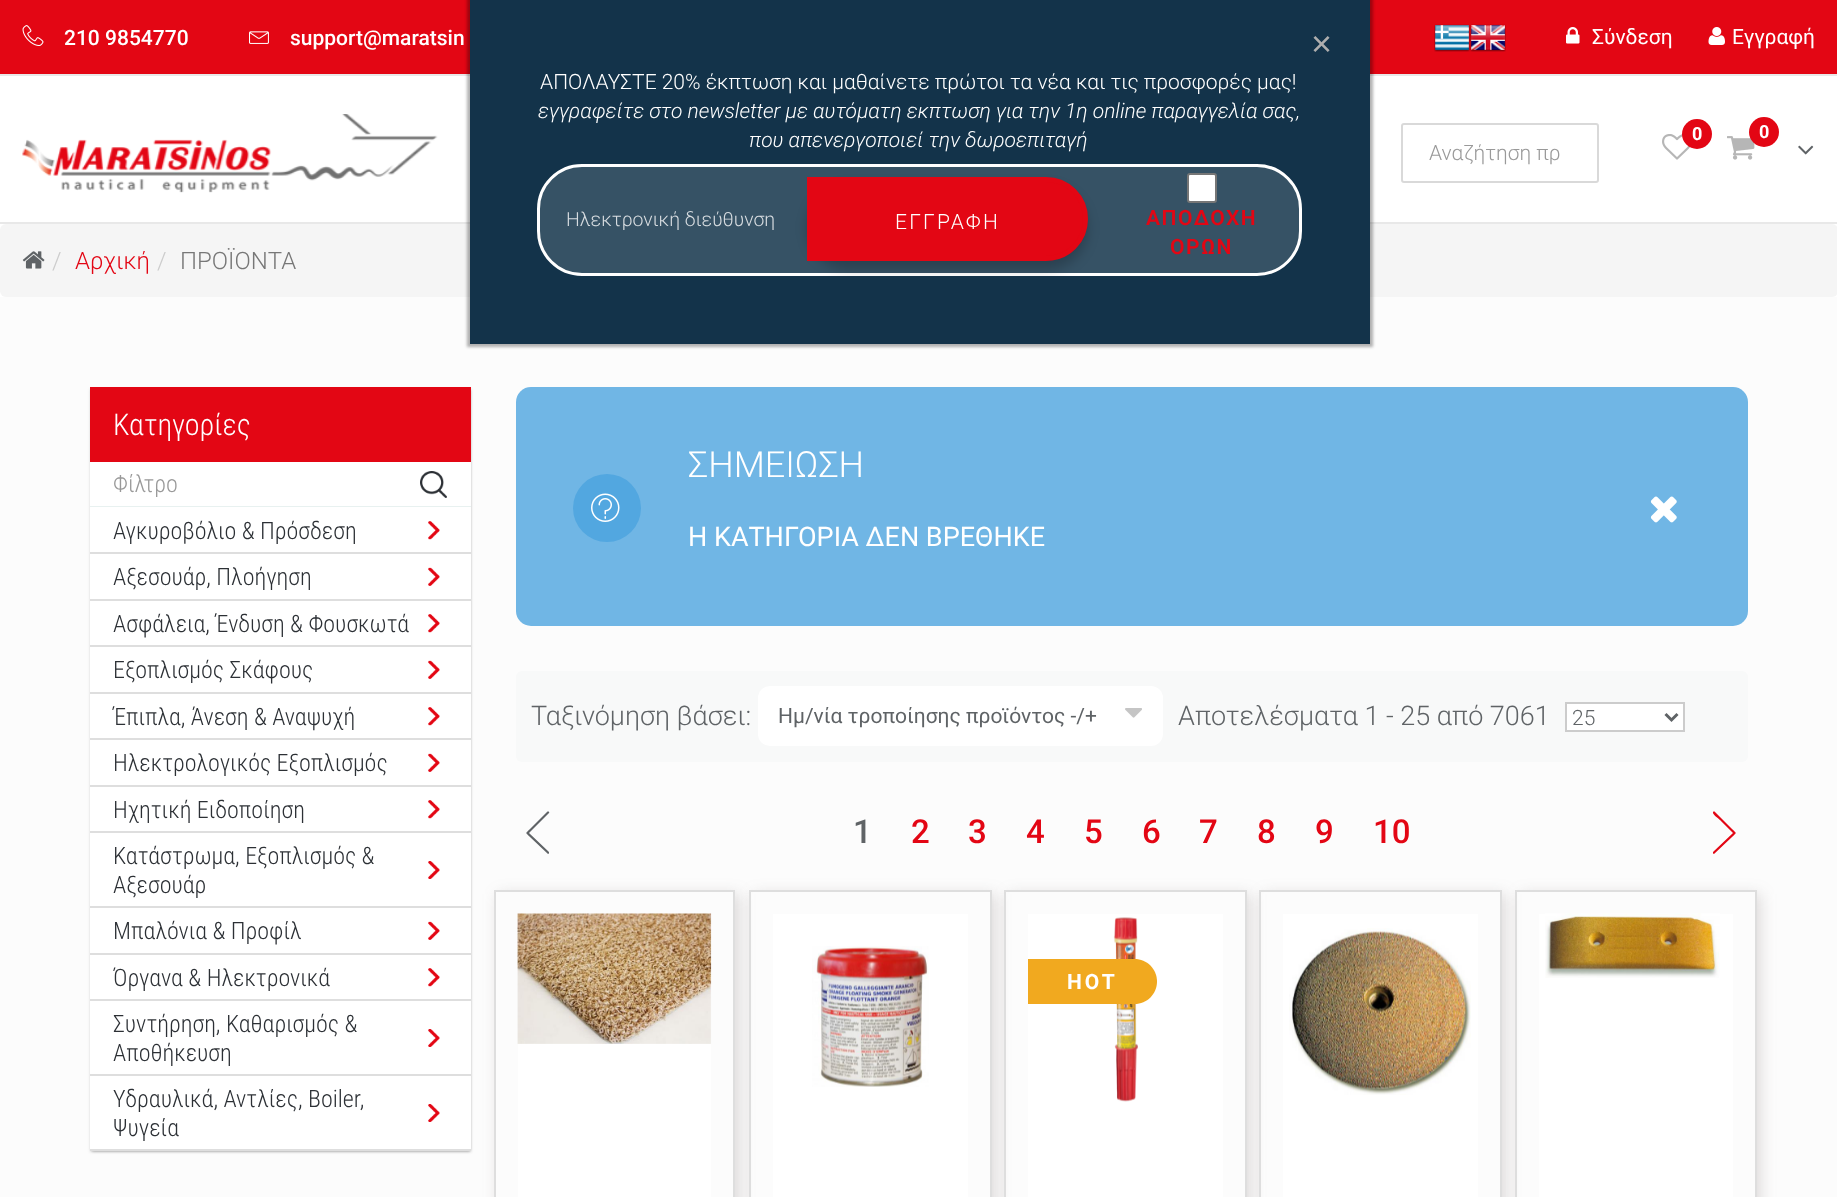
<svg xmlns="http://www.w3.org/2000/svg" width="1837" height="1197" viewBox="0 0 1837 1197">
  <defs>
    <clipPath id="clip1"><path d="M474 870H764V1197H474ZM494 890H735V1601H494Z" clip-rule="evenodd"/></clipPath>
    <clipPath id="clip2"><path d="M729 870H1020V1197H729ZM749 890H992V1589H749Z" clip-rule="evenodd"/></clipPath>
    <clipPath id="clip3"><path d="M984 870H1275V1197H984ZM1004 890H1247V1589H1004Z" clip-rule="evenodd"/></clipPath>
    <clipPath id="clip4"><path d="M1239 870H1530V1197H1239ZM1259 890H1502V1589H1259Z" clip-rule="evenodd"/></clipPath>
    <clipPath id="clip5"><path d="M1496 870H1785V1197H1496ZM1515 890H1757V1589H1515Z" clip-rule="evenodd"/></clipPath>
    <clipPath id="clip6"><rect x="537" y="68" width="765" height="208"/></clipPath>
  </defs>
  <rect width="100%" height="100%" fill="rgb(255,255,255)"/>
  <rect x="0" y="0" width="1837" height="74" fill="rgb(227,6,20)"/>
  <image x="22" y="25" width="22" height="21" href="pic1.png"/>
  <text x="64" y="45" font-family="Roboto" font-size="21" font-weight="500" fill="rgb(255,255,255)">210 9854770</text>
  <image x="249" y="31" width="20" height="13" href="pic2.png"/>
  <text x="290" y="45" font-family="Roboto" font-size="21" font-weight="500" fill="rgb(255,255,255)">support@maratsin</text>
  <image x="1434" y="24" width="36" height="28" href="pic3.png"/>
  <image x="1470" y="24" width="36" height="28" href="pic4.png"/>
  <image x="1566" y="27" width="14" height="17" href="pic5.png"/>
  <text x="1592" y="44" font-family="Roboto" font-size="21" fill="rgb(255,255,255)">Σύνδεση</text>
  <image x="1708" y="27" width="17" height="18" href="pic6.png"/>
  <text x="1732" y="44" font-family="Roboto" font-size="21" fill="rgb(255,255,255)">Εγγραφή</text>
  <rect x="0" y="74" width="1837" height="2" fill="rgb(232,232,232)"/>
  <rect x="0" y="222" width="1837" height="2" fill="rgb(232,232,232)"/>
  <image x="22" y="114" width="416" height="79" href="pic7.png"/>
  <image x="1662" y="134" width="28" height="26" href="pic8.png"/>
  <circle cx="1697" cy="134" r="15" fill="rgb(227,6,20)"/>
  <text x="1692" y="140" font-family="Roboto" font-size="18" font-weight="bold" fill="rgb(255,255,255)">0</text>
  <image x="1727" y="136" width="28" height="24" href="pic9.png"/>
  <circle cx="1764" cy="132" r="15" fill="rgb(227,6,20)"/>
  <text x="1759" y="138" font-family="Roboto" font-size="18" font-weight="bold" fill="rgb(255,255,255)">0</text>
  <image x="1798" y="145" width="16" height="10" href="pic10.png"/>
  <rect x="1402" y="124" width="196" height="58" rx="2" fill="none" stroke="rgb(217,217,217)" stroke-width="2"/>
  <text x="1429" y="160" font-family="Roboto" font-size="21" font-weight="300" fill="rgb(153,153,153)">Αναζήτηση πρ</text>
  <rect x="0" y="224" width="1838" height="73" rx="6" fill="rgb(245,245,245)"/>
  <image x="22" y="251" width="23" height="18" href="pic11.png"/>
  <text x="52" y="269" font-family="Roboto" font-size="24" font-weight="300" fill="rgb(204,204,204)">/</text>
  <text x="75" y="269" font-family="Roboto" font-size="24" font-weight="300" fill="rgb(227,6,20)">Αρχική</text>
  <text x="157" y="269" font-family="Roboto" font-size="24" font-weight="300" fill="rgb(204,204,204)">/</text>
  <text x="180" y="269" font-family="Roboto" font-size="24" font-weight="300" fill="rgb(119,119,119)">ΠΡΟΪΟΝΤΑ</text>
  <rect x="0" y="297" width="1837" height="900" fill="rgb(252,252,252)"/>
  <rect x="90" y="389" width="381" height="763" fill="rgba(0,0,0,0.1)" filter="blur(1.5px)"/>
  <rect x="92" y="390" width="378" height="761" fill="rgba(0,0,0,0.4)" filter="blur(1.5px)"/>
  <rect x="90" y="387" width="381" height="75" fill="rgb(227,6,20)"/>
  <text x="113" y="435" font-family="Roboto Condensed" font-size="30" font-weight="300" fill="rgb(255,255,255)">Κατηγορίες</text>
  <rect x="90" y="462" width="381" height="44" fill="rgb(255,255,255)"/>
  <rect x="90" y="506" width="381" height="1" fill="rgb(232,241,240)"/>
  <text x="113" y="492" font-family="Roboto Condensed" font-size="24" font-weight="300" fill="rgb(153,153,153)">Φίλτρο</text>
  <image x="420" y="471" width="27" height="27" href="pic12.png"/>
  <rect x="90" y="507" width="381" height="642" fill="rgb(255,255,255)"/>
  <rect x="90" y="552" width="381" height="2" fill="rgb(222,222,222)"/>
  <text x="113" y="539" font-family="Roboto Condensed" font-size="24" font-weight="300" fill="rgb(44,48,53)">Αγκυροβόλιο &amp; Πρόσδεση</text>
  <image x="428" y="521" width="12" height="19" href="pic13.png"/>
  <rect x="90" y="599" width="381" height="2" fill="rgb(222,222,222)"/>
  <text x="113" y="585" font-family="Roboto Condensed" font-size="24" font-weight="300" fill="rgb(44,48,53)">Αξεσουάρ, Πλοήγηση</text>
  <image x="428" y="567" width="12" height="19" href="pic14.png"/>
  <rect x="90" y="645" width="381" height="2" fill="rgb(222,222,222)"/>
  <text x="113" y="632" font-family="Roboto Condensed" font-size="24" font-weight="300" fill="rgb(44,48,53)">Ασφάλεια, Ένδυση &amp; Φουσκωτά</text>
  <image x="428" y="614" width="12" height="19" href="pic13.png"/>
  <rect x="90" y="692" width="381" height="2" fill="rgb(222,222,222)"/>
  <text x="113" y="678" font-family="Roboto Condensed" font-size="24" font-weight="300" fill="rgb(44,48,53)">Εξοπλισμός Σκάφους</text>
  <image x="428" y="660" width="12" height="19" href="pic14.png"/>
  <rect x="90" y="738" width="381" height="2" fill="rgb(222,222,222)"/>
  <text x="113" y="725" font-family="Roboto Condensed" font-size="24" font-weight="300" fill="rgb(44,48,53)">Έπιπλα, Άνεση &amp; Αναψυχή</text>
  <image x="428" y="707" width="12" height="19" href="pic13.png"/>
  <rect x="90" y="785" width="381" height="2" fill="rgb(222,222,222)"/>
  <text x="113" y="771" font-family="Roboto Condensed" font-size="24" font-weight="300" fill="rgb(44,48,53)">Ηλεκτρολογικός Εξοπλισμός</text>
  <image x="428" y="753" width="12" height="19" href="pic14.png"/>
  <rect x="90" y="831" width="381" height="2" fill="rgb(222,222,222)"/>
  <text x="113" y="818" font-family="Roboto Condensed" font-size="24" font-weight="300" fill="rgb(44,48,53)">Ηχητική Ειδοποίηση</text>
  <image x="428" y="800" width="12" height="19" href="pic13.png"/>
  <rect x="90" y="906" width="381" height="2" fill="rgb(222,222,222)"/>
  <g font-family="Roboto Condensed" font-size="24" font-weight="300" fill="rgb(44,48,53)">
    <text>
      <tspan x="113" y="864">Κατάστρωμα, Εξοπλισμός &amp;</tspan>
      <tspan x="113" y="893">Αξεσουάρ</tspan>
    </text>
  </g>
  <image x="428" y="861" width="12" height="18" href="pic15.png"/>
  <rect x="90" y="953" width="381" height="2" fill="rgb(222,222,222)"/>
  <text x="113" y="939" font-family="Roboto Condensed" font-size="24" font-weight="300" fill="rgb(44,48,53)">Μπαλόνια &amp; Προφίλ</text>
  <image x="428" y="921" width="12" height="19" href="pic14.png"/>
  <rect x="90" y="999" width="381" height="2" fill="rgb(222,222,222)"/>
  <text x="113" y="986" font-family="Roboto Condensed" font-size="24" font-weight="300" fill="rgb(44,48,53)">Όργανα &amp; Ηλεκτρονικά</text>
  <image x="428" y="968" width="12" height="19" href="pic13.png"/>
  <rect x="90" y="1074" width="381" height="2" fill="rgb(222,222,222)"/>
  <g font-family="Roboto Condensed" font-size="24" font-weight="300" fill="rgb(44,48,53)">
    <text>
      <tspan x="113" y="1032">Συντήρηση, Καθαρισμός &amp;</tspan>
      <tspan x="113" y="1061">Αποθήκευση</tspan>
    </text>
  </g>
  <image x="428" y="1029" width="12" height="18" href="pic15.png"/>
  <rect x="90" y="1149" width="381" height="2" fill="rgb(222,222,222)"/>
  <g font-family="Roboto Condensed" font-size="24" font-weight="300" fill="rgb(44,48,53)">
    <text>
      <tspan x="113" y="1107">Υδραυλικά, Αντλίες, Boiler,</tspan>
      <tspan x="113" y="1136">Ψυγεία</tspan>
    </text>
  </g>
  <image x="428" y="1104" width="12" height="18" href="pic15.png"/>
  <rect x="516" y="387" width="1232" height="239" rx="15" fill="rgb(112,182,229)"/>
  <text x="688" y="477" font-family="Roboto" font-size="36" font-weight="300" fill="rgb(255,255,255)">ΣΗΜΕΙΩΣΗ</text>
  <circle cx="607" cy="508" r="34" fill="rgb(82,167,224)"/>
  <image x="591" y="493" width="29" height="29" href="pic16.png"/>
  <image x="1650" y="496" width="27" height="27" href="pic17.png"/>
  <text x="688" y="546" font-family="Roboto" font-size="27" fill="rgb(255,255,255)">Η ΚΑΤΗΓΟΡΙΑ ΔΕΝ ΒΡΕΘΗΚΕ</text>
  <rect x="516" y="671" width="1232" height="91" rx="6" fill="rgb(248,249,249)"/>
  <text x="531" y="725" font-family="Roboto" font-size="27" font-weight="300" fill="rgb(95,99,102)">Ταξινόμηση βάσει:</text>
  <rect x="758" y="686" width="405" height="60" rx="12" fill="rgb(255,255,255)"/>
  <text x="778" y="723" font-family="Roboto" font-size="21" fill="rgb(95,99,102)">Ημ/νία τροποίησης προϊόντος -/+</text>
  <image x="1125" y="708" width="17" height="10" href="pic18.png"/>
  <text x="1178" y="725" font-family="Roboto" font-size="27" font-weight="300" fill="rgb(95,99,102)">Αποτελέσματα 1 - 25 από 7061</text>
  <rect x="1566" y="703" width="118" height="28" fill="rgb(255,255,255)" stroke="rgb(204,204,204)" stroke-width="2"/>
  <path d="M1665.5 714L1671.5 720L1677.5 714" fill="none" stroke="rgb(95,99,102)" stroke-width="3"/>
  <text x="1572" y="725" font-family="Roboto" font-size="21" font-weight="300" fill="rgb(95,99,102)">25</text>
  <path d="M548 854C549 854 549 853 549 852L529 833L549 813C550 812 548 811 547 812L530 829C525 834 525 832 530 837Z" fill="rgb(95,99,102)"/>
  <text x="853" y="843" font-family="Roboto" font-size="33" font-weight="500" fill="rgb(95,99,102)">1</text>
  <g font-family="Roboto" font-size="33" font-weight="500" fill="rgb(227,6,20)">
    <text x="911" y="843">2</text>
    <text x="968" y="843">3</text>
    <text x="1026" y="843">4</text>
    <text x="1084" y="843">5</text>
    <text x="1142" y="843">6</text>
    <text x="1199" y="843">7</text>
    <text x="1257" y="843">8</text>
    <text x="1315" y="843">9</text>
    <text x="1373" y="843">10</text>
  </g>
  <path d="M1714 854C1713 854 1713 853 1713 852L1733 833L1720 820C1719 819 1712 814 1713 812C1714 811 1714 811 1715 812L1732 829C1737 834 1737 832 1732 837Z" fill="rgb(227,6,20)"/>
  <g clip-path="url(#clip1)">
    <rect x="498" y="894" width="242" height="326" fill="rgba(104,89,89,0.2)" filter="blur(7.5px)"/>
  </g>
  <rect x="495" y="891" width="239" height="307" fill="none" stroke="rgb(222,222,222)" stroke-width="2"/>
  <rect x="518" y="914" width="193" height="283" fill="rgb(255,255,255)"/>
  <image x="517" y="913" width="195" height="131" href="pic19.png"/>
  <g clip-path="url(#clip2)">
    <rect x="753" y="894" width="243" height="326" fill="rgba(104,89,89,0.2)" filter="blur(7.5px)"/>
  </g>
  <rect x="750" y="891" width="241" height="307" fill="none" stroke="rgb(222,222,222)" stroke-width="2"/>
  <rect x="773" y="914" width="195" height="283" fill="rgb(255,255,255)"/>
  <image x="812" y="946" width="117" height="141" href="pic20.png"/>
  <g clip-path="url(#clip3)">
    <rect x="1008" y="894" width="243" height="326" fill="rgba(104,89,89,0.2)" filter="blur(7.5px)"/>
  </g>
  <rect x="1005" y="891" width="241" height="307" fill="none" stroke="rgb(222,222,222)" stroke-width="2"/>
  <rect x="1028" y="914" width="195" height="283" fill="rgb(255,255,255)"/>
  <image x="1113" y="917" width="25" height="185" href="pic21.png"/>
  <path d="M1028 959H1134.5C1147 959 1157 969 1157 981.5C1157 994 1147 1004 1134.5 1004H1028Z" fill="rgb(241,169,31)"/>
  <text x="1067" y="989" font-family="Roboto" font-size="21" font-weight="bold" letter-spacing="3" fill="rgb(255,255,255)">HOT</text>
  <g clip-path="url(#clip4)">
    <rect x="1263" y="894" width="243" height="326" fill="rgba(104,89,89,0.2)" filter="blur(7.5px)"/>
  </g>
  <rect x="1260" y="891" width="241" height="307" fill="none" stroke="rgb(222,222,222)" stroke-width="2"/>
  <rect x="1283" y="914" width="195" height="283" fill="rgb(255,255,255)"/>
  <image x="1289" y="928" width="182" height="167" href="pic22.png"/>
  <g clip-path="url(#clip5)">
    <rect x="1520" y="894" width="241" height="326" fill="rgba(104,89,89,0.2)" filter="blur(7.5px)"/>
  </g>
  <rect x="1516" y="891" width="240" height="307" fill="none" stroke="rgb(222,222,222)" stroke-width="2"/>
  <rect x="1539" y="914" width="194" height="283" fill="rgb(255,255,255)"/>
  <image x="1545" y="913" width="175" height="65" href="pic23.png"/>
  <rect x="467" y="-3" width="906" height="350" fill="rgba(0,0,1,0.3)" filter="blur(1.5px)"/>
  <rect x="470" y="0" width="900" height="344" fill="rgb(19,51,74)"/>
  <text x="1311" y="56" font-family="Liberation Sans" font-size="36" fill="rgb(174,174,174)">×</text>
  <text x="540" y="89" font-family="Roboto" font-size="21" font-weight="300" fill="rgb(255,255,255)">ΑΠΟΛΑΥΣΤΕ 20% έκπτωση και μαθαίνετε πρώτοι τα νέα και τις προσφορές μας!</text>
  <g font-family="Roboto" font-size="21" font-weight="300" font-style="italic" fill="rgb(255,255,255)">
    <text x="538" y="118">εγγραφείτε στο newsletter με αυτόματη εκπτωση για την 1η online παραγγελία σας,</text>
    <text x="749" y="147">που απενεργοποιεί την δωροεπιταγή</text>
  </g>
  <rect x="538.5" y="165.5" width="762" height="109" rx="43.5" fill="rgb(54,82,101)" stroke="rgb(255,255,255)" stroke-width="3"/>
  <text x="566" y="226" font-family="Roboto" font-size="19.5" font-weight="300" fill="rgb(215,220,224)">Ηλεκτρονική διεύθυνση</text>
  <g clip-path="url(#clip6)">
    <rect x="807" y="186" width="281" height="84" rx="42" fill="rgba(0,0,0,0.2)" filter="blur(6px)"/>
  </g>
  <path d="M809.5 179.5H1046C1068 179.5 1085.5 197 1085.5 219C1085.5 241 1068 258.5 1046 258.5H809.5Z" fill="rgb(227,6,20)" stroke="rgb(227,6,20)" stroke-width="5"/>
  <text x="895" y="229" font-family="Roboto" font-size="21" font-weight="300" letter-spacing="2.25" fill="rgb(255,255,255)">ΕΓΓΡΑΦΗ</text>
  <rect x="1188" y="174" width="28" height="28" rx="2" fill="rgb(255,255,255)" stroke="rgb(118,118,118)" stroke-width="2"/>
  <g font-family="Roboto" font-size="21" font-weight="600" letter-spacing="1.5" fill="rgb(227,6,20)">
    <text x="1146" y="225">ΑΠΟΔΟΧΗ</text>
    <text x="1170" y="254">ΟΡΩΝ</text>
  </g>
</svg>
